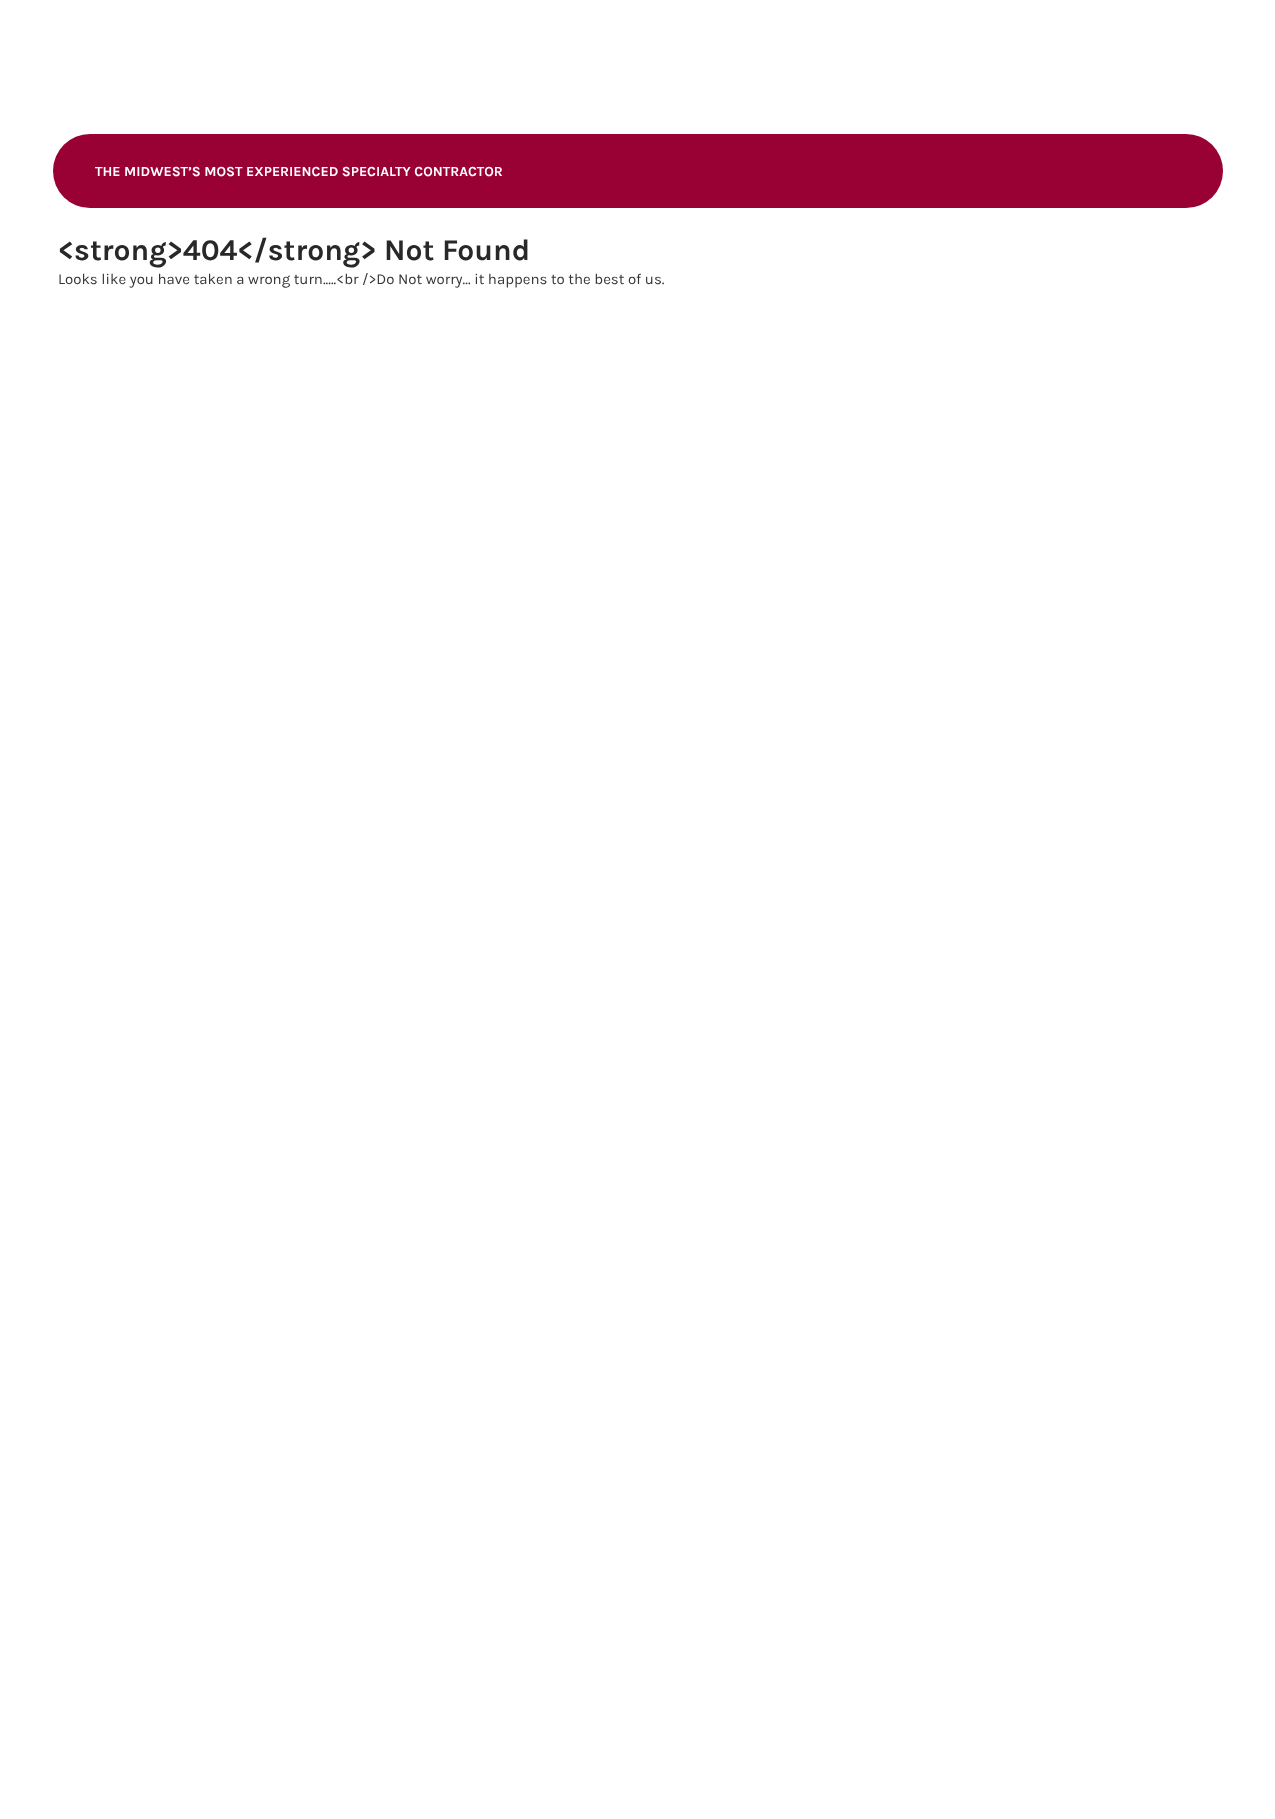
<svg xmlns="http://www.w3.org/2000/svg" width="1275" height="1819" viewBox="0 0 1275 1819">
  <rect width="100%" height="100%" fill="rgb(255,255,255)"/>
  <rect x="53" y="134" width="1170" height="74" rx="37" fill="rgb(153,1,52)"/>
  <text x="95" y="176" font-family="Karla" font-size="14" font-weight="bold" fill="rgb(255,255,255)">THE MIDWEST’S MOST EXPERIENCED SPECIALTY CONTRACTOR</text>
  <text x="58" y="260" font-family="Karla" font-size="30" font-weight="bold" fill="rgb(40,40,40)">&lt;strong&gt;404&lt;/strong&gt; Not Found</text>
  <text x="58" y="284" font-family="Karla" font-size="15" fill="rgb(53,53,53)">Looks like you have taken a wrong turn.....&lt;br /&gt;Do Not worry... it happens to the best of us.</text>
</svg>
